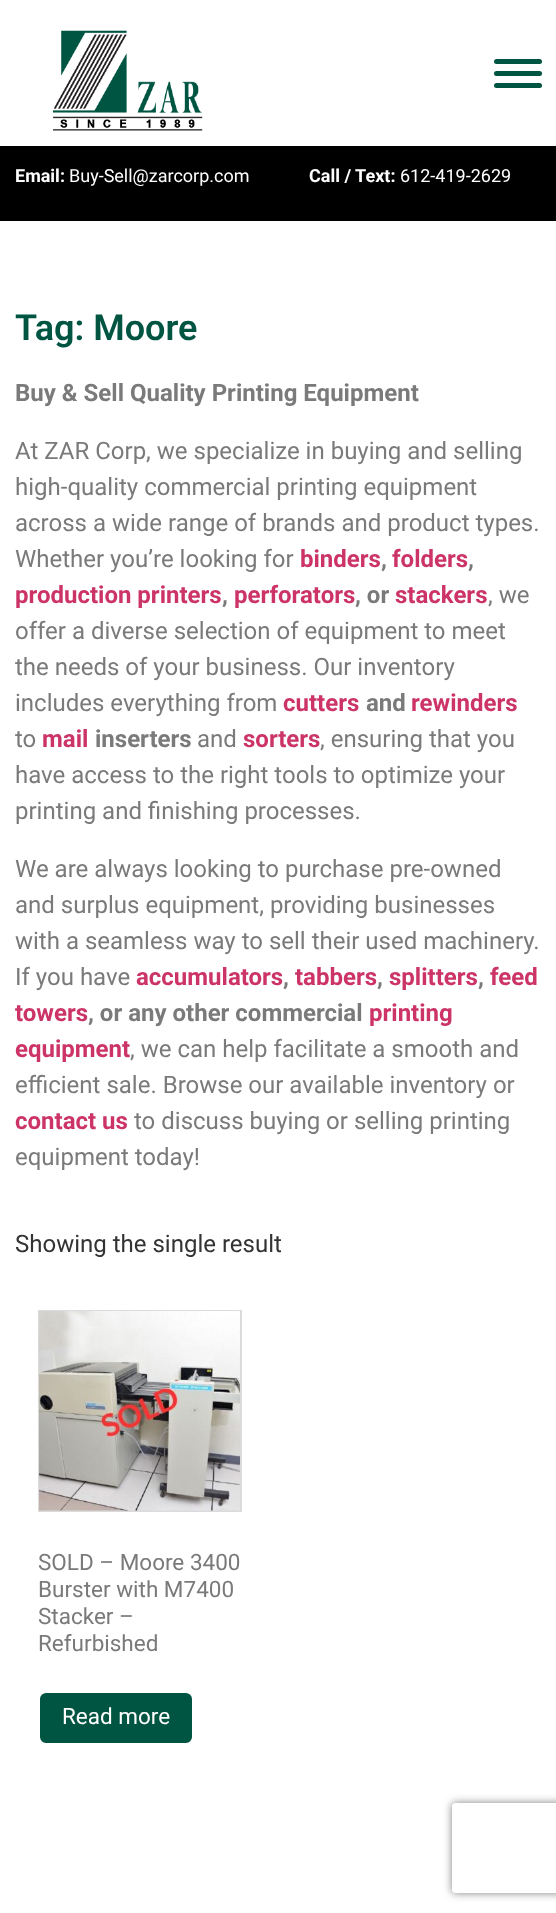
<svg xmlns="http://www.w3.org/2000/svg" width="556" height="1913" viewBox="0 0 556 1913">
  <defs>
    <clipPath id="clip1"><path d="M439 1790H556V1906H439ZM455 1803H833C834.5 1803 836 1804.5 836 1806V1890C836 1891.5 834.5 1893 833 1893H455C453.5 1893 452 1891.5 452 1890V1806C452 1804.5 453.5 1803 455 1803Z" clip-rule="evenodd"/></clipPath>
  </defs>
  <rect width="100%" height="100%" fill="rgb(255,255,255)"/>
  <image x="52" y="30" width="151" height="101" href="pic1.png"/>
  <rect x="494" y="59" width="48" height="5" rx="2.5" fill="rgb(0,85,66)"/>
  <rect x="494" y="71" width="48" height="5" rx="2.5" fill="rgb(0,85,66)"/>
  <rect x="494" y="83" width="48" height="5" rx="2.5" fill="rgb(0,85,66)"/>
  <rect x="0" y="146" width="556" height="75" fill="rgb(0,0,0)"/>
  <text x="15" y="182" font-family="Roboto" font-size="18" font-weight="bold" fill="rgb(255,255,255)">Email:</text>
  <text x="69" y="182" font-family="Roboto" font-size="18" fill="rgb(255,255,255)">Buy-Sell@zarcorp.com</text>
  <text x="309" y="182" font-family="Roboto" font-size="18" font-weight="bold" fill="rgb(255,255,255)">Call / Text:</text>
  <text x="400" y="182" font-family="Roboto" font-size="18" fill="rgb(255,255,255)">612-419-2629</text>
  <text x="15" y="340" font-family="Roboto" font-size="36" font-weight="600" fill="rgb(0,85,66)">Tag: Moore</text>
  <text x="15" y="401" font-family="Roboto" font-size="24" font-weight="bold" fill="rgb(122,122,122)">Buy &amp; Sell Quality Printing Equipment</text>
  <g font-family="Roboto" font-size="24" fill="rgb(122,122,122)">
    <text>
      <tspan x="15" y="459">At ZAR Corp, we specialize in buying and selling</tspan>
      <tspan x="15" y="495">high-quality commercial printing equipment</tspan>
      <tspan x="15" y="531">across a wide range of brands and product types.</tspan>
      <tspan x="15" y="567">Whether you’re looking for</tspan>
    </text>
  </g>
  <text x="300" y="567" font-family="Roboto" font-size="24" font-weight="bold" fill="rgb(204,51,102)">binders</text>
  <text x="381" y="567" font-family="Roboto" font-size="24" font-weight="bold" fill="rgb(122,122,122)">,</text>
  <text x="392" y="567" font-family="Roboto" font-size="24" font-weight="bold" fill="rgb(204,51,102)">folders</text>
  <text x="468" y="567" font-family="Roboto" font-size="24" font-weight="bold" fill="rgb(122,122,122)">,</text>
  <text x="15" y="603" font-family="Roboto" font-size="24" font-weight="bold" fill="rgb(204,51,102)">production printers</text>
  <text x="222" y="603" font-family="Roboto" font-size="24" font-weight="bold" fill="rgb(122,122,122)">,</text>
  <text x="234" y="603" font-family="Roboto" font-size="24" font-weight="bold" fill="rgb(204,51,102)">perforators</text>
  <text x="355" y="603" font-family="Roboto" font-size="24" font-weight="bold" fill="rgb(122,122,122)">, or</text>
  <text x="395" y="603" font-family="Roboto" font-size="24" font-weight="bold" fill="rgb(204,51,102)">stackers</text>
  <g font-family="Roboto" font-size="24" fill="rgb(122,122,122)">
    <text x="488" y="603">, we</text>
    <text>
      <tspan x="15" y="639">offer a diverse selection of equipment to meet</tspan>
      <tspan x="15" y="675">the needs of your business. Our inventory</tspan>
      <tspan x="15" y="711">includes everything from</tspan>
    </text>
  </g>
  <text x="283" y="711" font-family="Roboto" font-size="24" font-weight="bold" fill="rgb(204,51,102)">cutters</text>
  <text x="366" y="711" font-family="Roboto" font-size="24" font-weight="bold" fill="rgb(122,122,122)">and</text>
  <text x="411" y="711" font-family="Roboto" font-size="24" font-weight="bold" fill="rgb(204,51,102)">rewinders</text>
  <text x="15" y="747" font-family="Roboto" font-size="24" fill="rgb(122,122,122)">to</text>
  <text x="42" y="747" font-family="Roboto" font-size="24" font-weight="bold" fill="rgb(204,51,102)">mail</text>
  <text x="95" y="747" font-family="Roboto" font-size="24" font-weight="bold" fill="rgb(122,122,122)">inserters</text>
  <text x="197" y="747" font-family="Roboto" font-size="24" fill="rgb(122,122,122)">and</text>
  <text x="243" y="747" font-family="Roboto" font-size="24" font-weight="bold" fill="rgb(204,51,102)">sorters</text>
  <g font-family="Roboto" font-size="24" fill="rgb(122,122,122)">
    <text x="320" y="747">, ensuring that you</text>
    <text>
      <tspan x="15" y="783">have access to the right tools to optimize your</tspan>
      <tspan x="15" y="819">printing and finishing processes.</tspan>
    </text>
    <text>
      <tspan x="15" y="877">We are always looking to purchase pre-owned</tspan>
      <tspan x="15" y="913">and surplus equipment, providing businesses</tspan>
      <tspan x="15" y="949">with a seamless way to sell their used machinery.</tspan>
      <tspan x="15" y="985">If you have</tspan>
    </text>
  </g>
  <text x="136" y="985" font-family="Roboto" font-size="24" font-weight="bold" fill="rgb(204,51,102)">accumulators</text>
  <text x="283" y="985" font-family="Roboto" font-size="24" font-weight="bold" fill="rgb(122,122,122)">,</text>
  <text x="295" y="985" font-family="Roboto" font-size="24" font-weight="bold" fill="rgb(204,51,102)">tabbers</text>
  <text x="377" y="985" font-family="Roboto" font-size="24" font-weight="bold" fill="rgb(122,122,122)">,</text>
  <text x="389" y="985" font-family="Roboto" font-size="24" font-weight="bold" fill="rgb(204,51,102)">splitters</text>
  <text x="478" y="985" font-family="Roboto" font-size="24" font-weight="bold" fill="rgb(122,122,122)">,</text>
  <g font-family="Roboto" font-size="24" font-weight="bold" fill="rgb(204,51,102)">
    <text x="490" y="985">feed</text>
    <text x="15" y="1021">towers</text>
  </g>
  <text x="88" y="1021" font-family="Roboto" font-size="24" font-weight="bold" fill="rgb(122,122,122)">, or any other commercial</text>
  <g font-family="Roboto" font-size="24" font-weight="bold" fill="rgb(204,51,102)">
    <text x="369" y="1021">printing</text>
    <text x="15" y="1057">equipment</text>
  </g>
  <g font-family="Roboto" font-size="24" fill="rgb(122,122,122)">
    <text x="130" y="1057">, we can help facilitate a smooth and</text>
    <text x="15" y="1093">efficient sale. Browse our available inventory or</text>
  </g>
  <text x="15" y="1129" font-family="Roboto" font-size="24" font-weight="bold" fill="rgb(204,51,102)">contact us</text>
  <g font-family="Roboto" font-size="24" fill="rgb(122,122,122)">
    <text x="134" y="1129">to discuss buying or selling printing</text>
    <text x="15" y="1165">equipment today!</text>
  </g>
  <text x="15" y="1252" font-family="Roboto" font-size="24" fill="rgb(51,51,51)">Showing the single result</text>
  <rect x="39" y="1311" width="202" height="200" fill="none" stroke="rgb(219,219,219)" stroke-width="2"/>
  <image x="39" y="1311" width="201" height="200" href="pic2.png"/>
  <g font-family="Roboto" font-size="22.5" fill="rgb(122,122,122)">
    <text>
      <tspan x="38" y="1570">SOLD – Moore 3400</tspan>
      <tspan x="38" y="1597">Burster with M7400</tspan>
      <tspan x="38" y="1624">Stacker –</tspan>
      <tspan x="38" y="1651">Refurbished</tspan>
    </text>
  </g>
  <rect x="39" y="1692" width="154" height="52" rx="7" fill="rgb(0,85,66)" stroke="rgb(255,255,255)" stroke-width="2"/>
  <text x="62" y="1724" font-family="Roboto" font-size="22.5" fill="rgb(255,255,255)">Read more</text>
  <g clip-path="url(#clip1)">
    <rect x="452" y="1803" width="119" height="90" rx="3" fill="rgb(128,128,128)" filter="blur(4px)"/>
  </g>
</svg>
